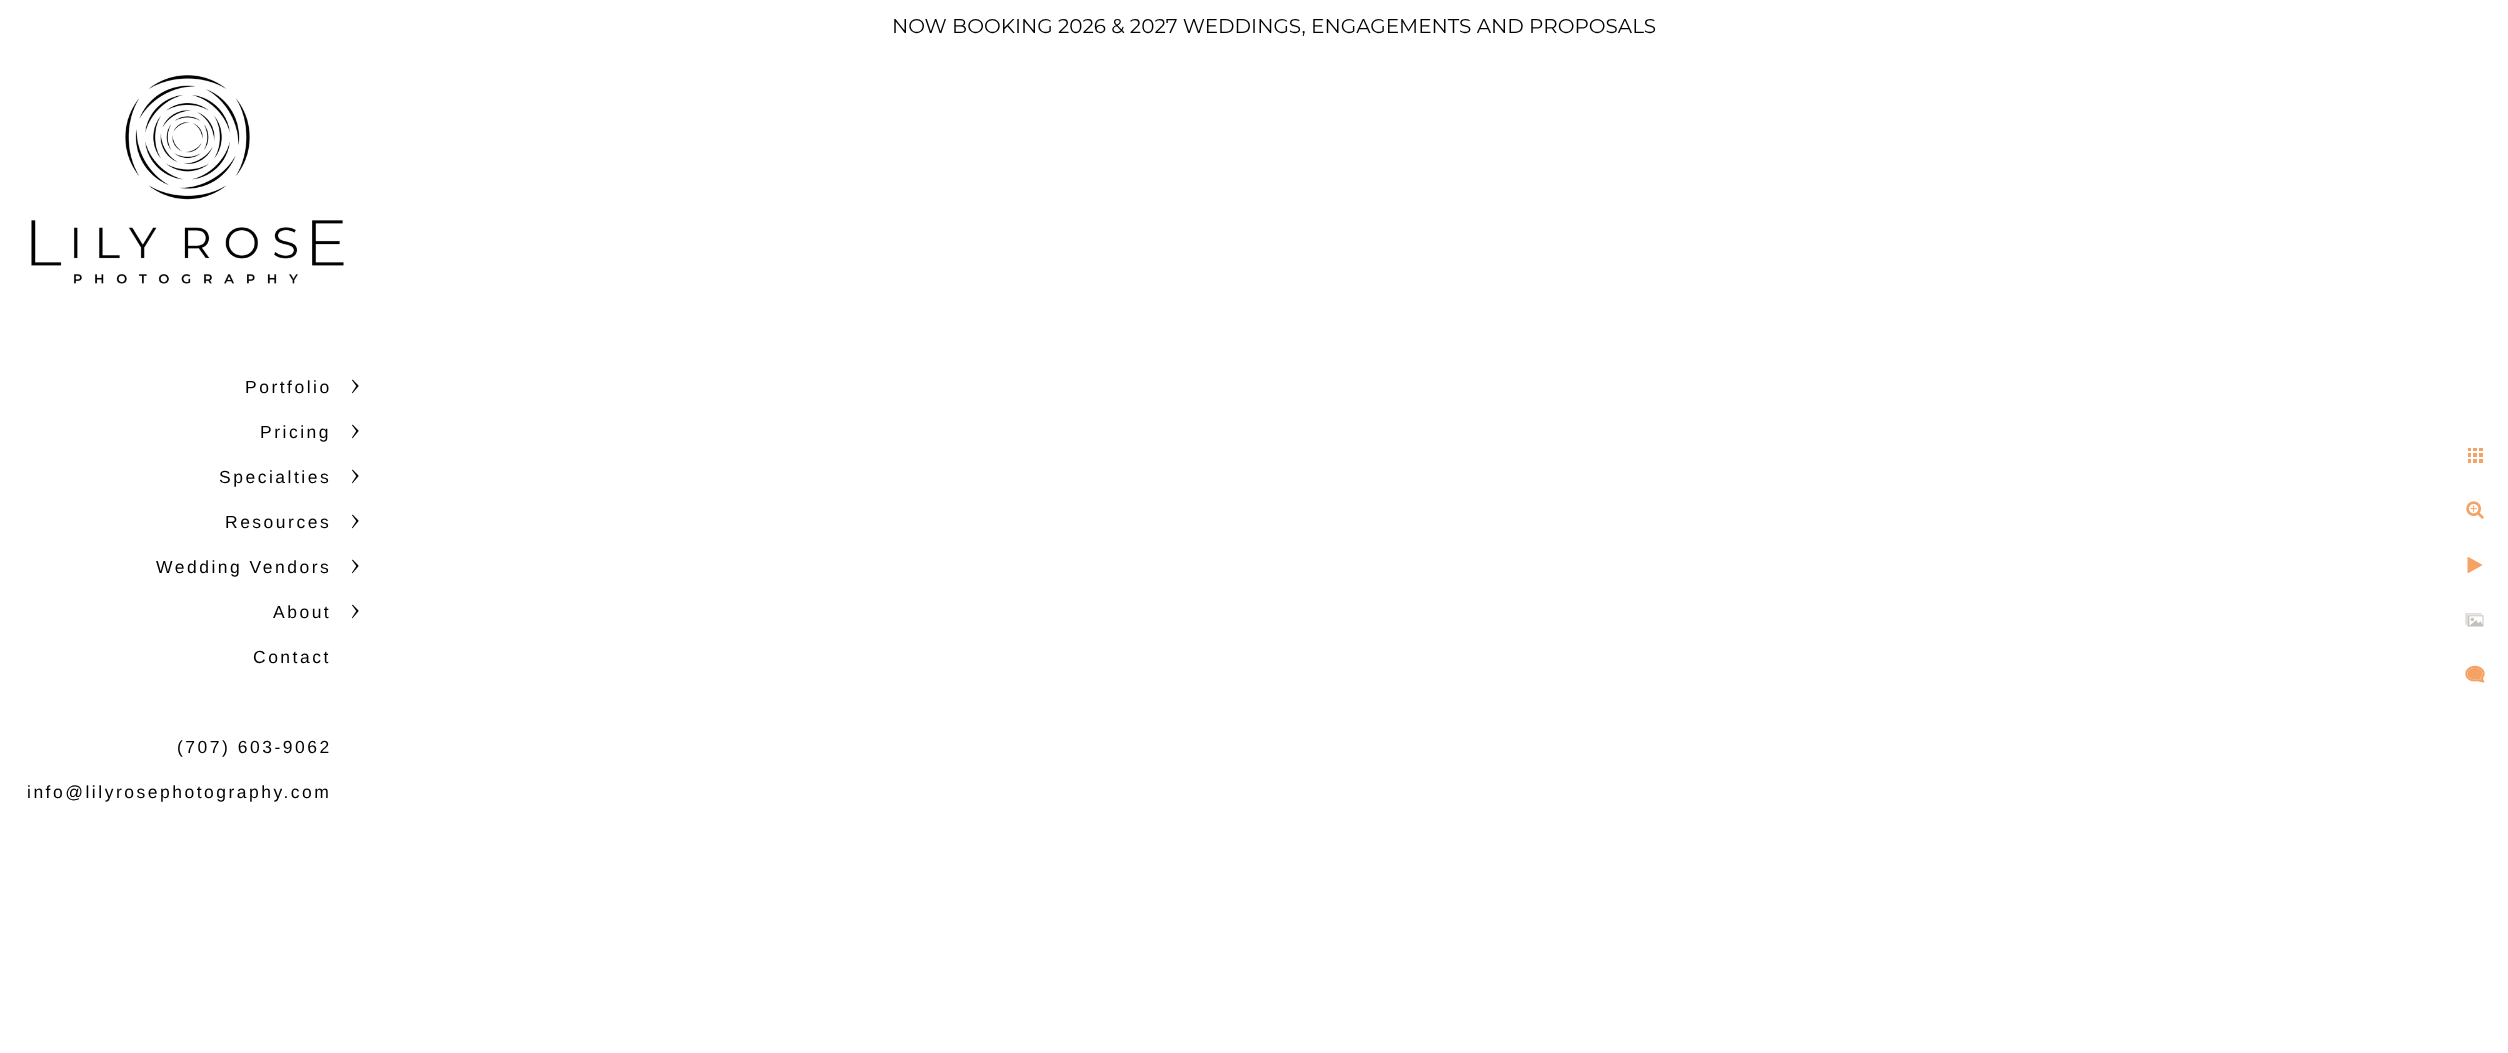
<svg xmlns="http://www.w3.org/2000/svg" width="2508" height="1053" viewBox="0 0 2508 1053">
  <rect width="100%" height="100%" fill="rgb(255,255,255)"/>
  <text x="892" y="33" font-family="Montserrat" font-size="20" font-weight="100" fill="rgb(0,0,0)">NOW BOOKING 2026 &amp; 2027 WEDDINGS, ENGAGEMENTS AND PROPOSALS</text>
  <image x="31" y="75" width="313" height="209" href="pic1.png"/>
  <text x="245" y="393" font-family="Liberation Sans" font-size="17.5" letter-spacing="2.5" fill="rgb(0,0,0)">Portfolio</text>
  <image x="351" y="379" width="8" height="15" href="pic2.png"/>
  <text x="260" y="438" font-family="Liberation Sans" font-size="17.5" letter-spacing="2.5" fill="rgb(0,0,0)">Pricing</text>
  <image x="351" y="424" width="8" height="15" href="pic2.png"/>
  <text x="219" y="483" font-family="Liberation Sans" font-size="17.5" letter-spacing="2.5" fill="rgb(0,0,0)">Specialties</text>
  <image x="351" y="469" width="8" height="15" href="pic2.png"/>
  <text x="225" y="528" font-family="Liberation Sans" font-size="17.5" letter-spacing="2.5" fill="rgb(0,0,0)">Resources</text>
  <image x="351" y="514" width="8" height="15" href="pic2.png"/>
  <text x="156" y="573" font-family="Liberation Sans" font-size="17.5" letter-spacing="2.5" fill="rgb(0,0,0)">Wedding Vendors</text>
  <image x="351" y="559" width="8" height="15" href="pic2.png"/>
  <text x="273" y="618" font-family="Liberation Sans" font-size="17.5" letter-spacing="2.5" fill="rgb(0,0,0)">About</text>
  <image x="351" y="604" width="8" height="15" href="pic2.png"/>
  <g font-family="Liberation Sans" font-size="17.5" letter-spacing="2.5" fill="rgb(0,0,0)">
    <text x="253" y="663">Contact</text>
    <text x="177" y="753">(707) 603-9062</text>
    <text x="27" y="798">info@lilyrosephotography.com</text>
  </g>
  <image x="2468" y="448" width="15" height="15" href="pic3.png"/>
  <image x="2466" y="501" width="18" height="18" href="pic4.png"/>
  <image x="2467" y="557" width="16" height="16" href="pic5.png"/>
  <image x="2465" y="613" width="19" height="14" href="pic6.png"/>
  <image x="2465" y="665" width="20" height="18" href="pic7.png"/>
</svg>
